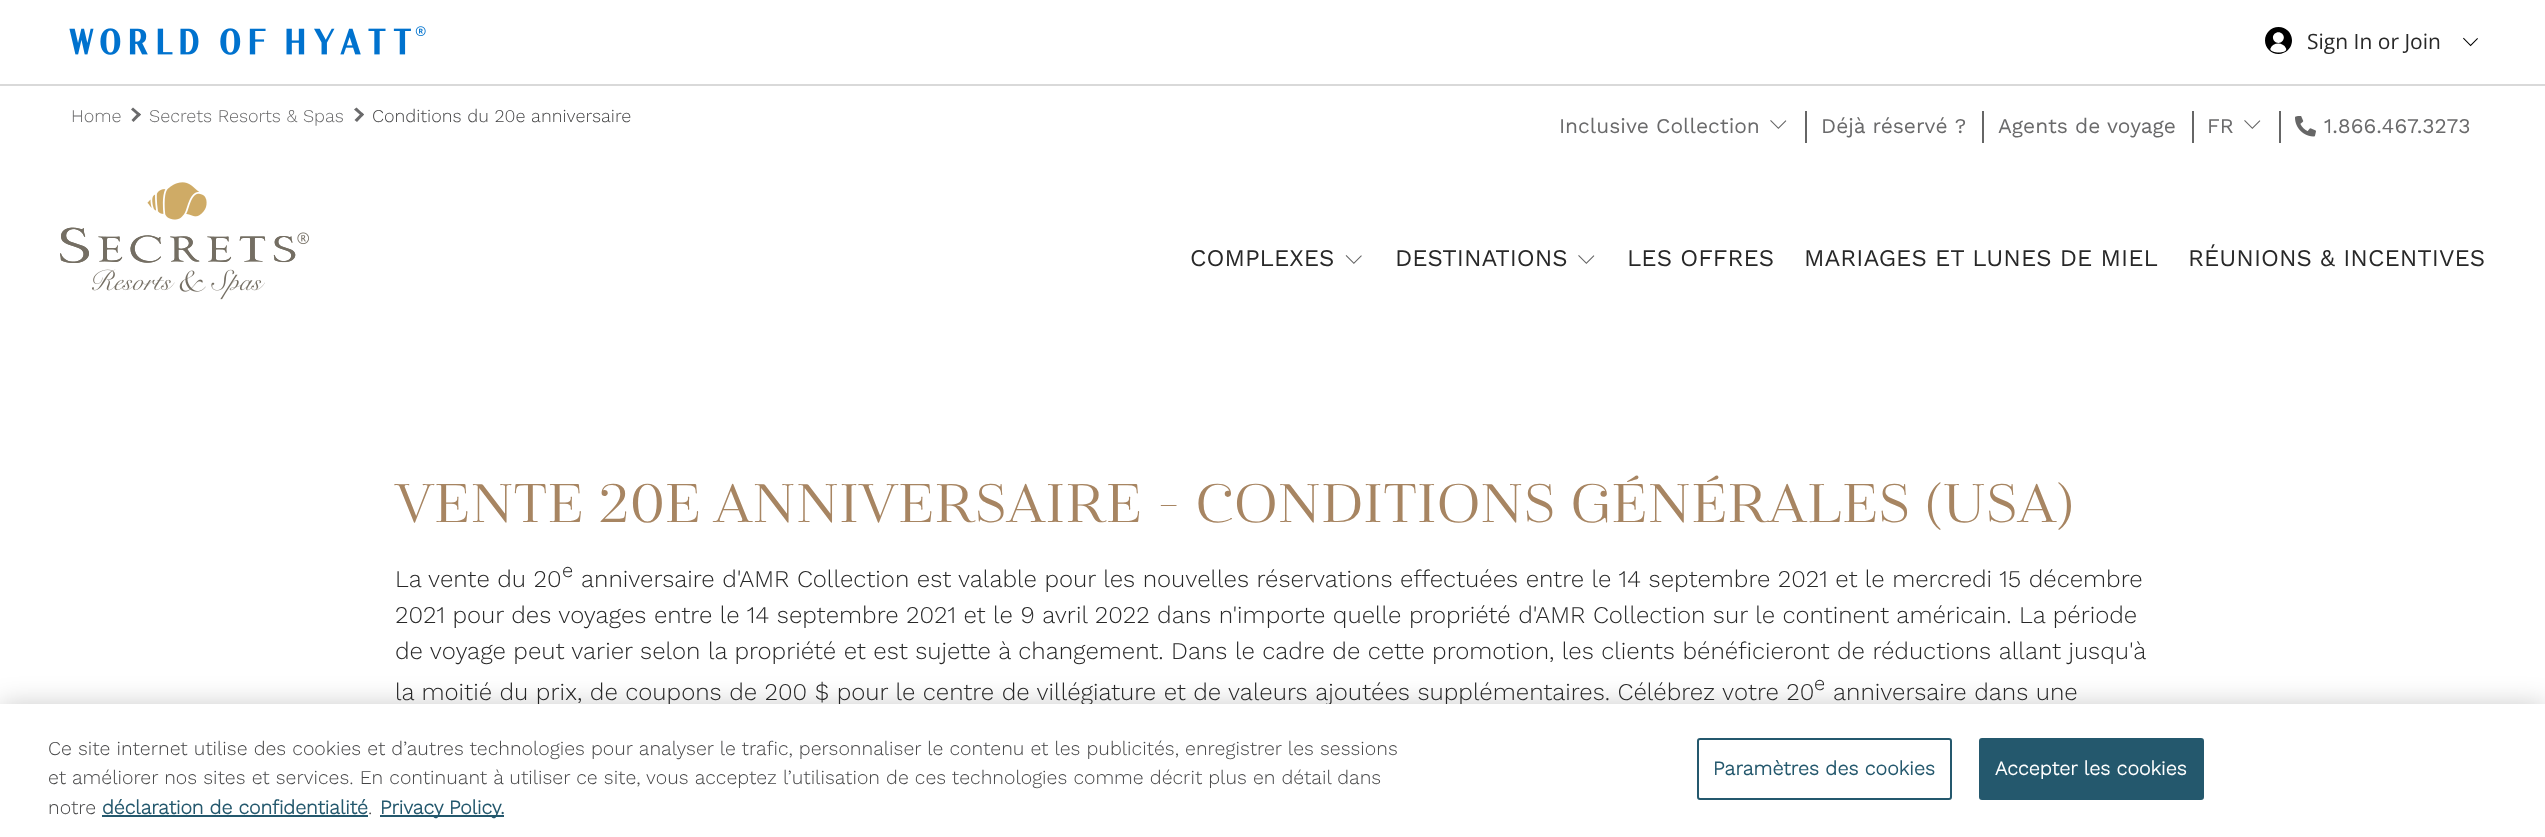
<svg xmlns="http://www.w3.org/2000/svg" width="2545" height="837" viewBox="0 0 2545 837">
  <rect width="100%" height="100%" fill="rgb(255,255,255)"/>
  <rect x="0" y="84" width="2545" height="2" fill="rgb(217,217,217)"/>
  <image x="69" y="26" width="357" height="29" href="pic1.png"/>
  <image x="2265" y="27" width="27" height="27" href="pic2.png"/>
  <text x="2307" y="49" font-family="Open Sans" font-size="21" fill="rgb(40,40,40)">Sign In or Join</text>
  <image x="2463" y="37" width="15" height="10" href="pic3.png"/>
  <text x="71" y="122" font-family="Work Sans" font-size="18" font-weight="300" fill="rgb(106,106,107)">Home</text>
  <path d="M131 109.5L133 107.5L141 114.5L139 116.5Z" fill="rgb(106,106,107)"/>
  <path d="M131.5 120L138.5 112.5L141 114.5L133.5 122Z" fill="rgb(106,106,107)"/>
  <text x="149" y="122" font-family="Work Sans" font-size="18" font-weight="300" fill="rgb(106,106,107)">Secrets Resorts &amp; Spas</text>
  <path d="M354 109.5L356.5 107.5L364 114.5L362 116.5Z" fill="rgb(106,106,107)"/>
  <path d="M354.5 120L362 112.5L364 114.5L357 122Z" fill="rgb(106,106,107)"/>
  <text x="372" y="122" font-family="Work Sans" font-size="18" font-weight="300" fill="rgb(69,69,70)">Conditions du 20e anniversaire</text>
  <rect x="1805" y="111" width="2" height="32" fill="rgb(102,102,102)"/>
  <text x="1559" y="133" font-family="Work Sans" font-size="21" fill="rgb(106,106,107)">Inclusive Collection</text>
  <image x="1770" y="120" width="17" height="9" href="pic4.png"/>
  <rect x="1982" y="111" width="2" height="32" fill="rgb(102,102,102)"/>
  <text x="1821" y="133" font-family="Work Sans" font-size="21" fill="rgb(106,106,107)">Déjà réservé ?</text>
  <rect x="2192" y="111" width="2" height="32" fill="rgb(102,102,102)"/>
  <text x="1998" y="133" font-family="Work Sans" font-size="21" fill="rgb(106,106,107)">Agents de voyage</text>
  <rect x="2279" y="111" width="2" height="32" fill="rgb(102,102,102)"/>
  <text x="2207" y="133" font-family="Work Sans" font-size="21" fill="rgb(106,106,107)">FR</text>
  <image x="2244" y="120" width="17" height="9" href="pic5.png"/>
  <image x="2295" y="116" width="21" height="21" href="pic6.png"/>
  <text x="2324" y="133" font-family="Work Sans" font-size="21" fill="rgb(106,106,107)">1.866.467.3273</text>
  <image x="60" y="182" width="249" height="118" href="pic7.png"/>
  <text x="1190" y="266" font-family="Work Sans" font-size="24" fill="rgb(40,40,40)">COMPLEXES</text>
  <image x="1345" y="255" width="17" height="9" href="pic8.png"/>
  <text x="1395" y="266" font-family="Work Sans" font-size="24" fill="rgb(40,40,40)">DESTINATIONS</text>
  <image x="1578" y="255" width="17" height="9" href="pic5.png"/>
  <g font-family="Work Sans" font-size="24" fill="rgb(40,40,40)">
    <text x="1627" y="266">LES OFFRES</text>
    <text x="1804" y="266">MARIAGES ET LUNES DE MIEL</text>
    <text x="2188" y="266">RÉUNIONS &amp; INCENTIVES</text>
  </g>
  <text x="395" y="522" font-family="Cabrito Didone" font-size="54" font-weight="600" fill="rgb(167,133,98)">VENTE 20E ANNIVERSAIRE - CONDITIONS GÉNÉRALES (USA)</text>
  <text x="395" y="587" font-family="Work Sans" font-size="24" font-weight="300" fill="rgb(40,40,40)">La vente du 20</text>
  <text x="562" y="577" font-family="Work Sans" font-size="20" font-weight="300" fill="rgb(40,40,40)">e</text>
  <g font-family="Work Sans" font-size="24" font-weight="300" fill="rgb(40,40,40)">
    <text x="581" y="587">anniversaire d'AMR Collection est valable pour les nouvelles réservations effectuées entre le 14 septembre 2021 et le mercredi 15 décembre</text>
    <text>
      <tspan x="395" y="623">2021 pour des voyages entre le 14 septembre 2021 et le 9 avril 2022 dans n'importe quelle propriété d'AMR Collection sur le continent américain. La période</tspan>
      <tspan x="395" y="659">de voyage peut varier selon la propriété et est sujette à changement. Dans le cadre de cette promotion, les clients bénéficieront de réductions allant jusqu'à</tspan>
      <tspan x="395" y="700">la moitié du prix, de coupons de 200 $ pour le centre de villégiature et de valeurs ajoutées supplémentaires. Célébrez votre 20</tspan>
    </text>
  </g>
  <text x="1814" y="690" font-family="Work Sans" font-size="20" font-weight="300" fill="rgb(40,40,40)">e</text>
  <text x="1833" y="700" font-family="Work Sans" font-size="24" font-weight="300" fill="rgb(40,40,40)">anniversaire dans une</text>
  <rect x="0" y="704" width="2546" height="133" fill="rgba(0,0,0,0.2)" filter="blur(13.5px)"/>
  <rect x="0" y="704" width="2545" height="133" fill="rgb(255,255,255)"/>
  <g font-family="Work Sans" font-size="19.5" font-weight="300" fill="rgb(69,69,70)">
    <text>
      <tspan x="48" y="755">Ce site internet utilise des cookies et d’autres technologies pour analyser le trafic, personnaliser le contenu et les publicités, enregistrer les sessions</tspan>
      <tspan x="48" y="784">et améliorer nos sites et services. En continuant à utiliser ce site, vous acceptez l’utilisation de ces technologies comme décrit plus en détail dans</tspan>
      <tspan x="48" y="814">notre</tspan>
    </text>
  </g>
  <text x="102" y="814" font-family="Work Sans" font-size="19.5" font-weight="bold" fill="rgb(36,88,109)">déclaration de confidentialité</text>
  <rect x="102" y="815" width="266" height="2" fill="rgb(36,88,109)"/>
  <text x="368" y="814" font-family="Work Sans" font-size="19.5" font-weight="300" fill="rgb(69,69,70)">.</text>
  <rect x="380" y="815" width="124" height="2" fill="rgb(36,88,109)"/>
  <text x="380" y="814" font-family="Work Sans" font-size="19.5" font-weight="bold" fill="rgb(36,88,109)">Privacy Policy.</text>
  <rect x="1698" y="739" width="253" height="60" rx="2" fill="none" stroke="rgb(36,88,109)" stroke-width="2"/>
  <text x="1713" y="775" font-family="Work Sans" font-size="19.5" font-weight="bold" letter-spacing="0.2" fill="rgb(36,88,109)">Paramètres des cookies</text>
  <rect x="1980" y="739" width="223" height="60" rx="2" fill="rgb(36,88,109)" stroke="rgb(36,88,109)" stroke-width="2"/>
  <text x="1995" y="775" font-family="Work Sans" font-size="19.5" font-weight="bold" letter-spacing="0.2" fill="rgb(255,255,255)">Accepter les cookies</text>
</svg>
